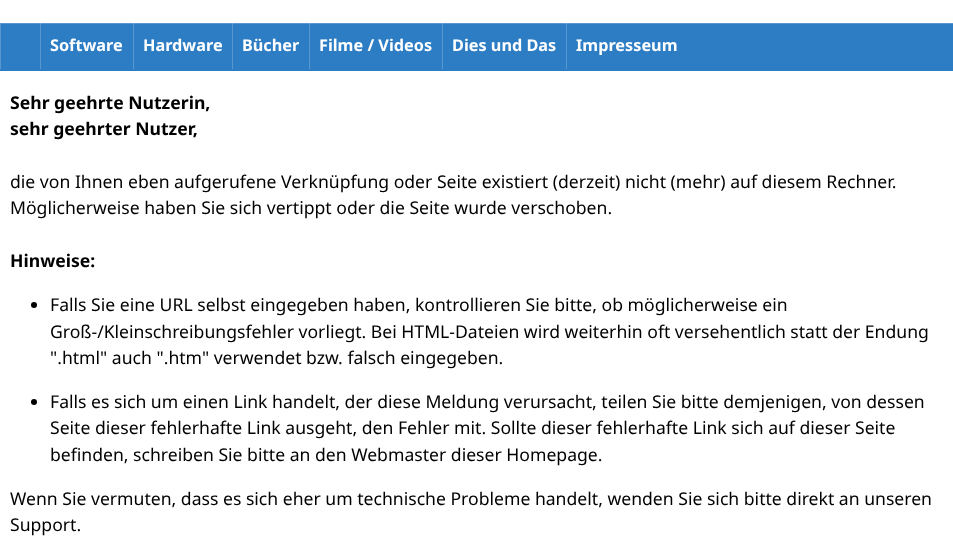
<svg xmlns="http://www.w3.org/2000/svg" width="953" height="538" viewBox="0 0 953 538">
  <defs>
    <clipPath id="clip1"><rect x="0" y="23" width="953" height="46"/></clipPath>
  </defs>
  <rect width="100%" height="100%" fill="rgb(255,255,255)"/>
  <rect x="1" y="24" width="952" height="45" fill="rgb(45,125,197)"/>
  <g clip-path="url(#clip1)">
    <path d="M-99-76H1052V168H-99ZM1 24H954V70H1Z" fill="rgb(87,151,209)" fill-rule="evenodd"/>
  </g>
  <rect x="40" y="23" width="1" height="46" fill="rgba(255,255,255,0.2)"/>
  <rect x="133" y="23" width="1" height="46" fill="rgba(255,255,255,0.2)"/>
  <text x="50" y="51" font-family="Noto Sans" font-size="16.25" font-weight="bold" fill="rgb(255,255,255)">Software</text>
  <rect x="232" y="23" width="1" height="46" fill="rgba(255,255,255,0.2)"/>
  <text x="143" y="51" font-family="Noto Sans" font-size="16.25" font-weight="bold" fill="rgb(255,255,255)">Hardware</text>
  <rect x="309" y="23" width="1" height="46" fill="rgba(255,255,255,0.2)"/>
  <text x="242" y="51" font-family="Noto Sans" font-size="16.25" font-weight="bold" fill="rgb(255,255,255)">Bücher</text>
  <rect x="442" y="23" width="1" height="46" fill="rgba(255,255,255,0.2)"/>
  <text x="319" y="51" font-family="Noto Sans" font-size="16.25" font-weight="bold" fill="rgb(255,255,255)">Filme / Videos</text>
  <rect x="566" y="23" width="1" height="46" fill="rgba(255,255,255,0.2)"/>
  <g font-family="Noto Sans" font-size="16.25" font-weight="bold" fill="rgb(255,255,255)">
    <text x="452" y="51">Dies und Das</text>
    <text x="576" y="51">Impresseum</text>
  </g>
  <rect x="0" y="69" width="953" height="2" fill="rgb(45,125,197)"/>
  <g font-family="Noto Sans" font-size="17.6" font-weight="bold" fill="rgb(0,0,0)">
    <text>
      <tspan x="10" y="109">Sehr geehrte Nutzerin,</tspan>
      <tspan x="10" y="135">sehr geehrter Nutzer,</tspan>
    </text>
  </g>
  <g font-family="Noto Sans" font-size="17.6" fill="rgb(0,0,0)">
    <text>
      <tspan x="10" y="188">die von Ihnen eben aufgerufene Verknüpfung oder Seite existiert (derzeit) nicht (mehr) auf diesem Rechner.</tspan>
      <tspan x="10" y="214">Möglicherweise haben Sie sich vertippt oder die Seite wurde verschoben.</tspan>
    </text>
  </g>
  <text x="10" y="267" font-family="Noto Sans" font-size="17.6" font-weight="bold" fill="rgb(0,0,0)">Hinweise:</text>
  <circle cx="34" cy="305" r="3" fill="rgb(0,0,0)"/>
  <g font-family="Noto Sans" font-size="17.6" fill="rgb(0,0,0)">
    <text>
      <tspan x="50" y="311">Falls Sie eine URL selbst eingegeben haben, kontrollieren Sie bitte, ob möglicherweise ein</tspan>
      <tspan x="50" y="338">Groß-/Kleinschreibungsfehler vorliegt. Bei HTML-Dateien wird weiterhin oft versehentlich statt der Endung</tspan>
      <tspan x="50" y="364">".html" auch ".htm" verwendet bzw. falsch eingegeben.</tspan>
    </text>
  </g>
  <circle cx="34" cy="402" r="3" fill="rgb(0,0,0)"/>
  <g font-family="Noto Sans" font-size="17.6" fill="rgb(0,0,0)">
    <text>
      <tspan x="50" y="408">Falls es sich um einen Link handelt, der diese Meldung verursacht, teilen Sie bitte demjenigen, von dessen</tspan>
      <tspan x="50" y="434">Seite dieser fehlerhafte Link ausgeht, den Fehler mit. Sollte dieser fehlerhafte Link sich auf dieser Seite</tspan>
      <tspan x="50" y="461">befinden, schreiben Sie bitte an den Webmaster dieser Homepage.</tspan>
    </text>
    <text>
      <tspan x="10" y="505">Wenn Sie vermuten, dass es sich eher um technische Probleme handelt, wenden Sie sich bitte direkt an unseren</tspan>
      <tspan x="10" y="531">Support.</tspan>
    </text>
  </g>
</svg>
